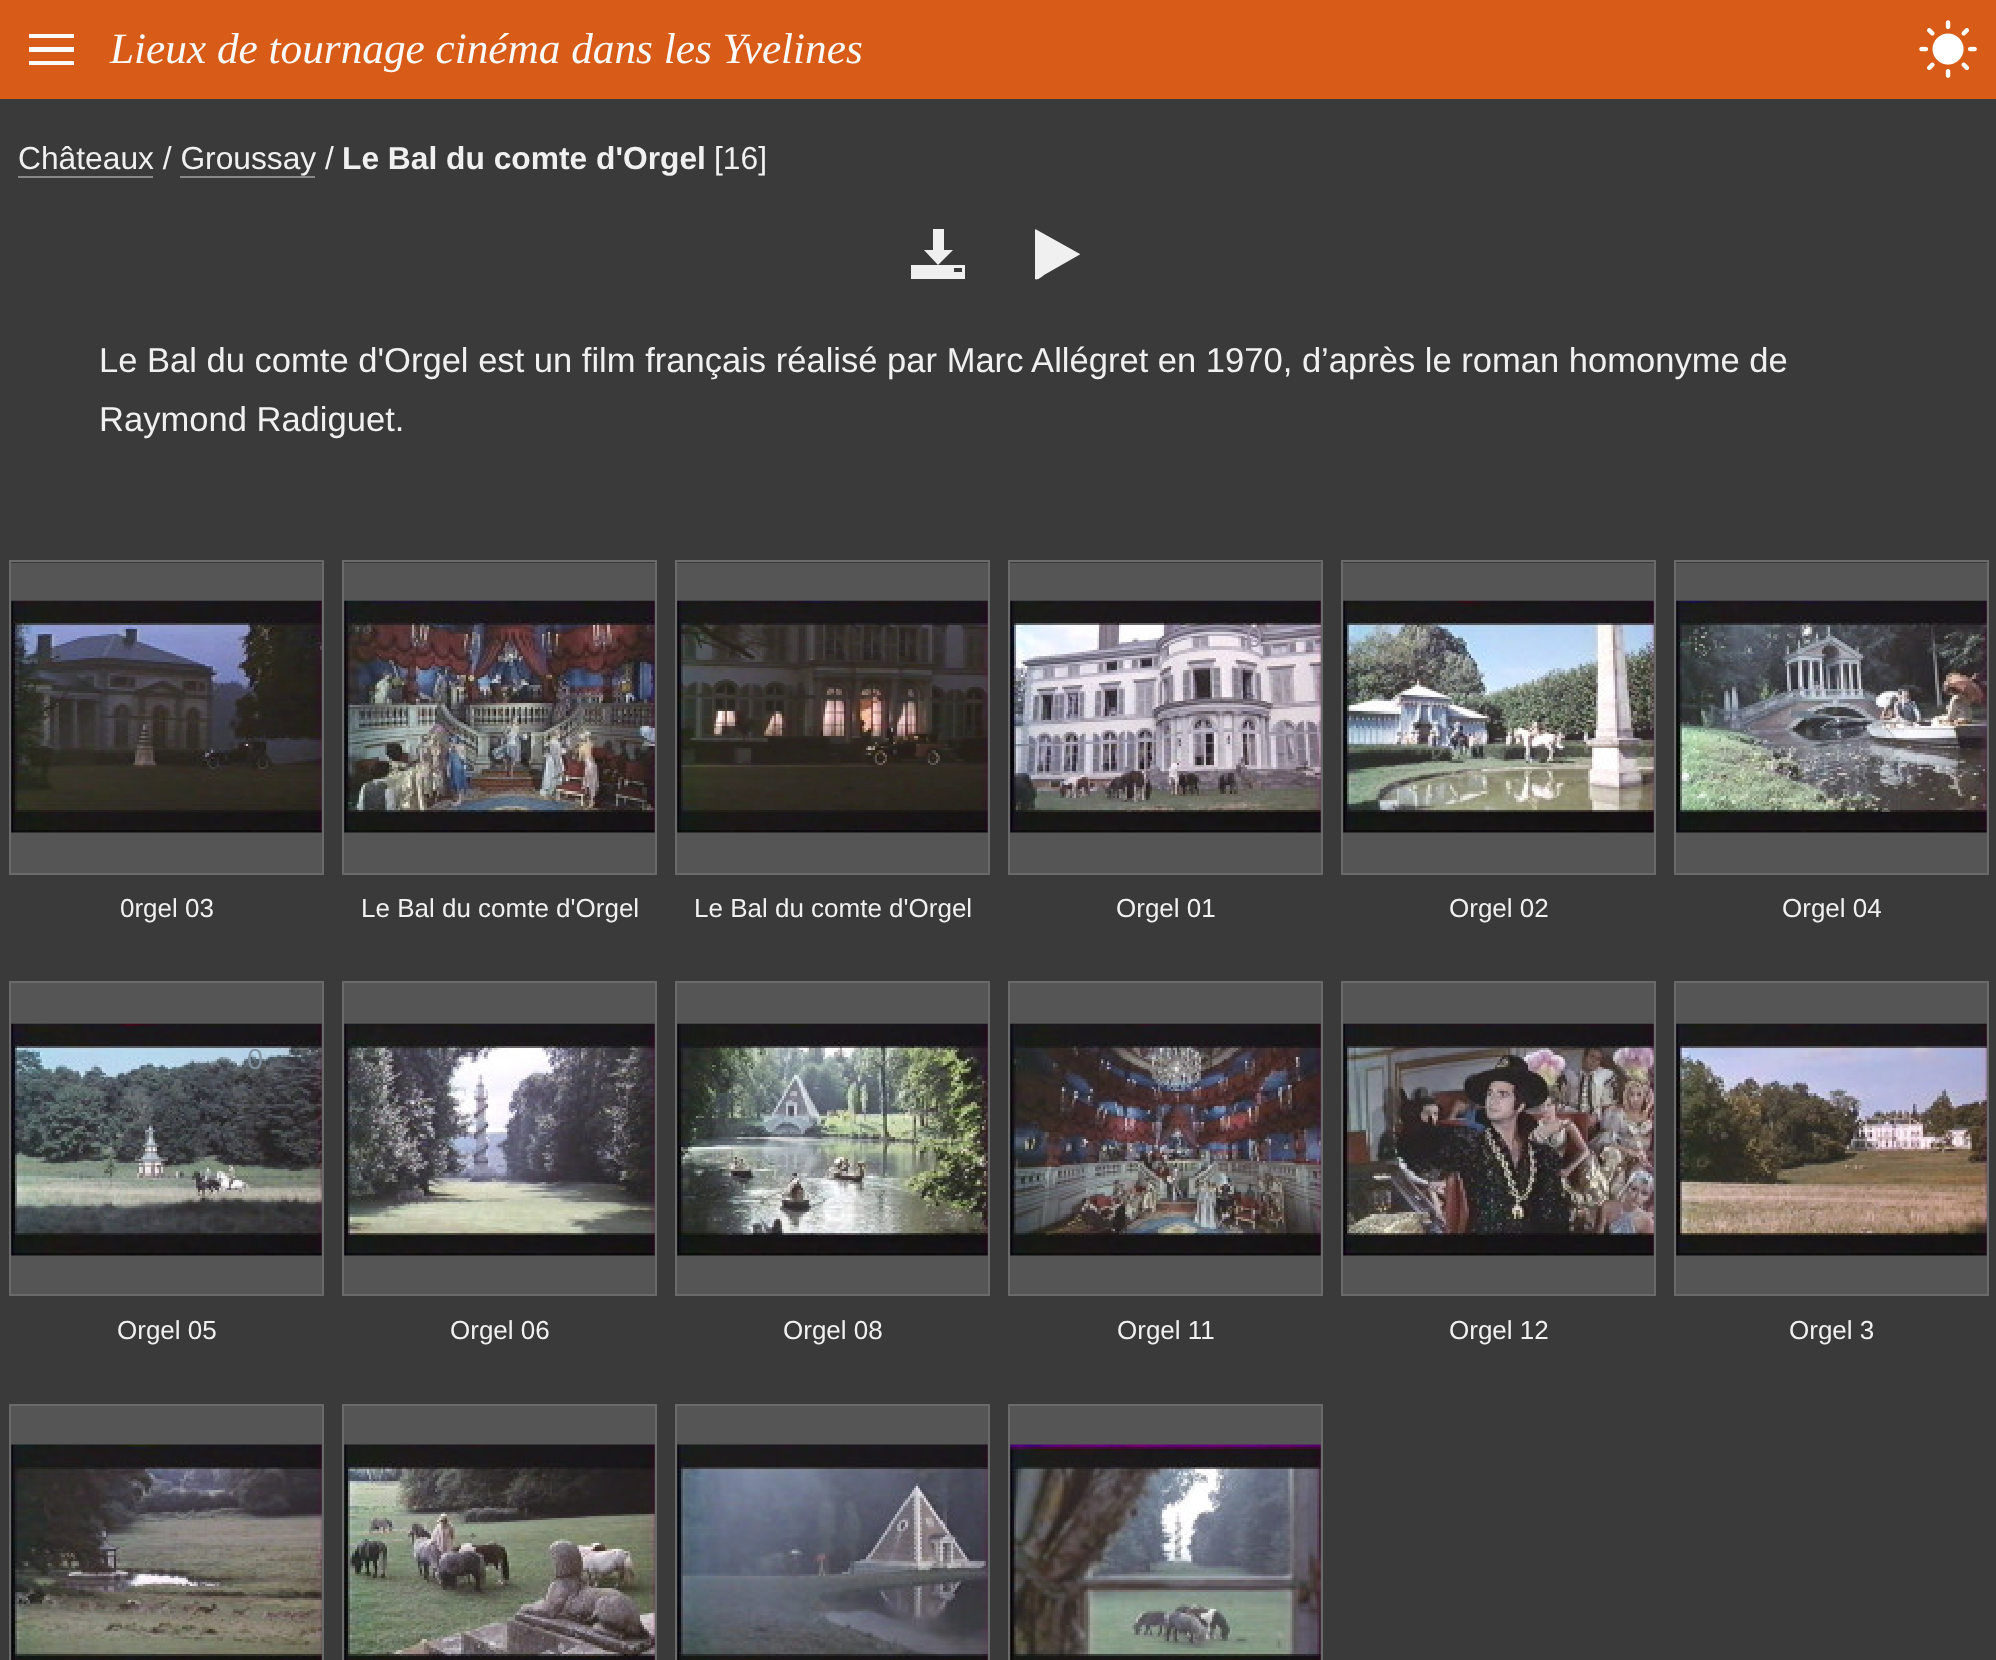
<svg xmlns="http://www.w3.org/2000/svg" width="1996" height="1660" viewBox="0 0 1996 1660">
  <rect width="100%" height="100%" fill="rgb(58,58,58)"/>
  <rect x="0" y="0" width="1996" height="99" fill="rgb(216,92,24)"/>
  <path d="M29 34H74V38H29ZM29 47H74V52H29ZM29 61H74V65H29Z" fill="rgb(250,250,250)"/>
  <text x="110" y="63" font-family="Liberation Serif" font-size="43.25" font-style="italic" fill="rgb(250,250,250)">Lieux de tournage cinéma dans les Yvelines</text>
  <image x="1919" y="20" width="58" height="58" href="pic1.png"/>
  <text x="18" y="169" font-family="Liberation Sans" font-size="31.75" fill="rgb(240,240,240)">Châteaux / Groussay /</text>
  <rect x="18" y="176" width="135" height="2" fill="rgb(136,136,136)"/>
  <text x="342" y="169" font-family="Liberation Sans" font-size="31.75" font-weight="bold" fill="rgb(240,240,240)">Le Bal du comte d'Orgel</text>
  <text x="714" y="169" font-family="Liberation Sans" font-size="31.75" fill="rgb(240,240,240)">[16]</text>
  <rect x="180" y="176" width="135" height="2" fill="rgb(136,136,136)"/>
  <path d="M953 250L938 265L924 250H933V229H944V250ZM938 265H911V279H965V265ZM962 272H954V268H962Z" fill="rgb(240,240,240)"/>
  <path d="M1079 255L1044 275C1043 276 1037 281 1035 279V230C1035 229 1036 229 1037 230L1080 254C1080 254 1080 255 1079 255Z" fill="rgb(240,240,240)"/>
  <g font-family="Liberation Sans" font-size="34.55" fill="rgb(240,240,240)">
    <text>
      <tspan x="99" y="372">Le Bal du comte d'Orgel est un film français réalisé par Marc Allégret en 1970, d’après le roman homonyme de</tspan>
      <tspan x="99" y="431">Raymond Radiguet.</tspan>
    </text>
  </g>
  <rect x="11" y="563" width="311" height="310" fill="rgb(85,85,85)"/>
  <rect x="10" y="561" width="313" height="313" fill="none" stroke="rgb(106,106,106)" stroke-width="2"/>
  <image x="11" y="600" width="311" height="233" href="pic2.png"/>
  <text x="120" y="917" font-family="Liberation Sans" font-size="26" fill="rgb(240,240,240)">0rgel 03</text>
  <rect x="344" y="563" width="311" height="310" fill="rgb(85,85,85)"/>
  <rect x="343" y="561" width="313" height="313" fill="none" stroke="rgb(106,106,106)" stroke-width="2"/>
  <image x="344" y="600" width="311" height="233" href="pic3.png"/>
  <text x="361" y="917" font-family="Liberation Sans" font-size="26" fill="rgb(240,240,240)">Le Bal du comte d'Orgel</text>
  <rect x="677" y="563" width="311" height="310" fill="rgb(85,85,85)"/>
  <rect x="676" y="561" width="313" height="313" fill="none" stroke="rgb(106,106,106)" stroke-width="2"/>
  <image x="677" y="600" width="311" height="233" href="pic4.png"/>
  <text x="694" y="917" font-family="Liberation Sans" font-size="26" fill="rgb(240,240,240)">Le Bal du comte d'Orgel</text>
  <rect x="1010" y="563" width="311" height="310" fill="rgb(85,85,85)"/>
  <rect x="1009" y="561" width="313" height="313" fill="none" stroke="rgb(106,106,106)" stroke-width="2"/>
  <image x="1010" y="600" width="311" height="233" href="pic5.png"/>
  <text x="1246" y="647" font-family="Liberation Sans" font-size="29" fill="rgb(159,150,166)">0</text>
  <text x="1116" y="917" font-family="Liberation Sans" font-size="26" fill="rgb(240,240,240)">Orgel 01</text>
  <rect x="1343" y="563" width="311" height="310" fill="rgb(85,85,85)"/>
  <rect x="1342" y="561" width="313" height="313" fill="none" stroke="rgb(106,106,106)" stroke-width="2"/>
  <image x="1343" y="600" width="311" height="233" href="pic6.png"/>
  <text x="1449" y="917" font-family="Liberation Sans" font-size="26" fill="rgb(240,240,240)">Orgel 02</text>
  <rect x="1676" y="563" width="311" height="310" fill="rgb(85,85,85)"/>
  <rect x="1675" y="561" width="313" height="313" fill="none" stroke="rgb(106,106,106)" stroke-width="2"/>
  <image x="1676" y="600" width="311" height="233" href="pic7.png"/>
  <text x="1782" y="917" font-family="Liberation Sans" font-size="26" fill="rgb(240,240,240)">Orgel 04</text>
  <rect x="10" y="982" width="313" height="313" fill="rgb(85,85,85)" stroke="rgb(106,106,106)" stroke-width="2"/>
  <image x="11" y="1023" width="311" height="233" href="pic8.png"/>
  <text x="247" y="1069" font-family="Liberation Sans" font-size="29" fill="rgb(130,146,159)">0</text>
  <text x="117" y="1339" font-family="Liberation Sans" font-size="26" fill="rgb(240,240,240)">Orgel 05</text>
  <rect x="343" y="982" width="313" height="313" fill="rgb(85,85,85)" stroke="rgb(106,106,106)" stroke-width="2"/>
  <image x="344" y="1023" width="311" height="233" href="pic9.png"/>
  <text x="450" y="1339" font-family="Liberation Sans" font-size="26" fill="rgb(240,240,240)">Orgel 06</text>
  <rect x="676" y="982" width="313" height="313" fill="rgb(85,85,85)" stroke="rgb(106,106,106)" stroke-width="2"/>
  <image x="677" y="1023" width="311" height="233" href="pic10.png"/>
  <text x="913" y="1069" font-family="Liberation Sans" font-size="29" fill="rgb(140,152,114)">0</text>
  <text x="783" y="1339" font-family="Liberation Sans" font-size="26" fill="rgb(240,240,240)">Orgel 08</text>
  <rect x="1009" y="982" width="313" height="313" fill="rgb(85,85,85)" stroke="rgb(106,106,106)" stroke-width="2"/>
  <image x="1010" y="1023" width="311" height="233" href="pic11.png"/>
  <text x="1117" y="1339" font-family="Liberation Sans" font-size="26" fill="rgb(240,240,240)">Orgel 11</text>
  <rect x="1342" y="982" width="313" height="313" fill="rgb(85,85,85)" stroke="rgb(106,106,106)" stroke-width="2"/>
  <image x="1343" y="1023" width="311" height="233" href="pic12.png"/>
  <text x="1449" y="1339" font-family="Liberation Sans" font-size="26" fill="rgb(240,240,240)">Orgel 12</text>
  <rect x="1675" y="982" width="313" height="313" fill="rgb(85,85,85)" stroke="rgb(106,106,106)" stroke-width="2"/>
  <image x="1676" y="1023" width="311" height="233" href="pic13.png"/>
  <text x="1789" y="1339" font-family="Liberation Sans" font-size="26" fill="rgb(240,240,240)">Orgel 3</text>
  <rect x="10" y="1405" width="313" height="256" fill="rgb(85,85,85)" stroke="rgb(106,106,106)" stroke-width="2"/>
  <image x="11" y="1444" width="311" height="216" href="pic14.png"/>
  <rect x="343" y="1405" width="313" height="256" fill="rgb(85,85,85)" stroke="rgb(106,106,106)" stroke-width="2"/>
  <image x="344" y="1444" width="311" height="216" href="pic15.png"/>
  <rect x="676" y="1405" width="313" height="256" fill="rgb(85,85,85)" stroke="rgb(106,106,106)" stroke-width="2"/>
  <image x="677" y="1444" width="311" height="216" href="pic16.png"/>
  <rect x="1009" y="1405" width="313" height="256" fill="rgb(85,85,85)" stroke="rgb(106,106,106)" stroke-width="2"/>
  <image x="1010" y="1444" width="311" height="216" href="pic17.png"/>
</svg>
